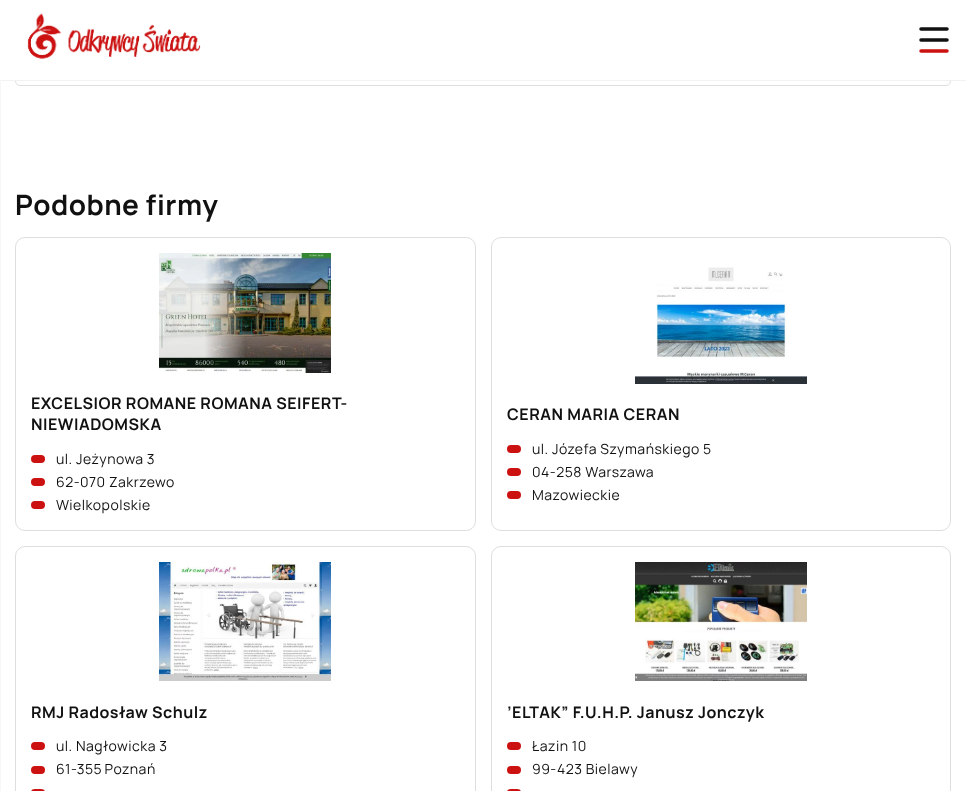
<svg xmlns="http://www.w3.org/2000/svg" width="966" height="791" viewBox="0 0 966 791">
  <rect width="100%" height="100%" fill="rgb(255,255,255)"/>
  <rect x="15.5" y="-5.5" width="935" height="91" rx="4.5" fill="none" stroke="rgb(222,222,222)"/>
  <rect x="15" y="0" width="936" height="80" fill="rgb(255,255,255)"/>
  <rect x="0" y="80" width="966" height="1" fill="rgb(242,242,242)"/>
  <image x="27" y="13" width="174" height="46" href="pic1.png"/>
  <path d="M921 29H947M921 40H947" fill="none" stroke="rgb(17,17,17)" stroke-width="3.5" stroke-linecap="round"/>
  <path d="M947 51H921" fill="none" stroke="rgb(204,17,17)" stroke-width="3.5" stroke-linecap="round"/>
  <rect x="0" y="80" width="1" height="711" fill="rgb(247,247,247)"/>
  <text x="15" y="215" font-family="Manrope" font-size="28" font-weight="bold" letter-spacing="0.5" fill="rgb(17,17,17)">Podobne firmy</text>
  <rect x="15.5" y="237.5" width="460" height="293" rx="9.5" fill="none" stroke="rgb(222,222,222)"/>
  <image x="159" y="253" width="172" height="120" href="pic2.png"/>
  <g font-family="Manrope" font-size="16" font-weight="bold" letter-spacing="0.5" fill="rgb(17,17,17)">
    <text>
      <tspan x="31" y="409">EXCELSIOR ROMANE ROMANA SEIFERT-</tspan>
      <tspan x="31" y="430">NIEWIADOMSKA</tspan>
    </text>
  </g>
  <rect x="31" y="455" width="14" height="8" rx="4" fill="rgb(204,17,17)"/>
  <text x="56" y="464" font-family="Manrope" font-size="14" letter-spacing="0.5" fill="rgb(17,17,17)">ul. Jeżynowa 3</text>
  <rect x="31" y="478" width="14" height="8" rx="4" fill="rgb(204,17,17)"/>
  <text x="56" y="487" font-family="Manrope" font-size="14" letter-spacing="0.5" fill="rgb(17,17,17)">62-070 Zakrzewo</text>
  <rect x="31" y="501" width="14" height="8" rx="4" fill="rgb(204,17,17)"/>
  <text x="56" y="510" font-family="Manrope" font-size="14" letter-spacing="0.5" fill="rgb(17,17,17)">Wielkopolskie</text>
  <rect x="491.5" y="237.5" width="459" height="293" rx="9.5" fill="none" stroke="rgb(222,222,222)"/>
  <image x="635" y="267" width="172" height="117" href="pic3.png"/>
  <text x="507" y="420" font-family="Manrope" font-size="16" font-weight="bold" letter-spacing="0.5" fill="rgb(17,17,17)">CERAN MARIA CERAN</text>
  <rect x="507" y="445" width="14" height="8" rx="4" fill="rgb(204,17,17)"/>
  <text x="532" y="454" font-family="Manrope" font-size="14" letter-spacing="0.5" fill="rgb(17,17,17)">ul. Józefa Szymańskiego 5</text>
  <rect x="507" y="468" width="14" height="8" rx="4" fill="rgb(204,17,17)"/>
  <text x="532" y="477" font-family="Manrope" font-size="14" letter-spacing="0.5" fill="rgb(17,17,17)">04-258 Warszawa</text>
  <rect x="507" y="491" width="14" height="8" rx="4" fill="rgb(204,17,17)"/>
  <text x="532" y="500" font-family="Manrope" font-size="14" letter-spacing="0.5" fill="rgb(17,17,17)">Mazowieckie</text>
  <rect x="15.5" y="546.5" width="460" height="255" rx="9.5" fill="none" stroke="rgb(222,222,222)"/>
  <image x="159" y="562" width="172" height="119" href="pic4.png"/>
  <text x="31" y="718" font-family="Manrope" font-size="16" font-weight="bold" letter-spacing="0.5" fill="rgb(17,17,17)">RMJ Radosław Schulz</text>
  <rect x="31" y="742" width="14" height="8" rx="4" fill="rgb(204,17,17)"/>
  <text x="56" y="751" font-family="Manrope" font-size="14" letter-spacing="0.5" fill="rgb(17,17,17)">ul. Nagłowicka 3</text>
  <rect x="31" y="766" width="14" height="8" rx="4" fill="rgb(204,17,17)"/>
  <text x="56" y="774" word-spacing="-1" font-family="Manrope" font-size="14" letter-spacing="0.5" fill="rgb(17,17,17)">61-355 Poznań</text>
  <rect x="31" y="789" width="14" height="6" rx="4" fill="rgb(204,17,17)"/>
  <rect x="491.5" y="546.5" width="459" height="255" rx="9.5" fill="none" stroke="rgb(222,222,222)"/>
  <image x="635" y="562" width="172" height="119" href="pic5.png"/>
  <text x="507" y="718" font-family="Manrope" font-size="16" font-weight="bold" letter-spacing="0.5" fill="rgb(17,17,17)">’ELTAK” F.U.H.P. Janusz Jonczyk</text>
  <rect x="507" y="742" width="14" height="8" rx="4" fill="rgb(204,17,17)"/>
  <text x="532" y="751" font-family="Manrope" font-size="14" letter-spacing="0.5" fill="rgb(17,17,17)">Łazin 10</text>
  <rect x="507" y="766" width="14" height="8" rx="4" fill="rgb(204,17,17)"/>
  <text x="532" y="774" font-family="Manrope" font-size="14" letter-spacing="0.5" fill="rgb(17,17,17)">99-423 Bielawy</text>
  <rect x="507" y="789" width="14" height="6" rx="4" fill="rgb(204,17,17)"/>
</svg>
